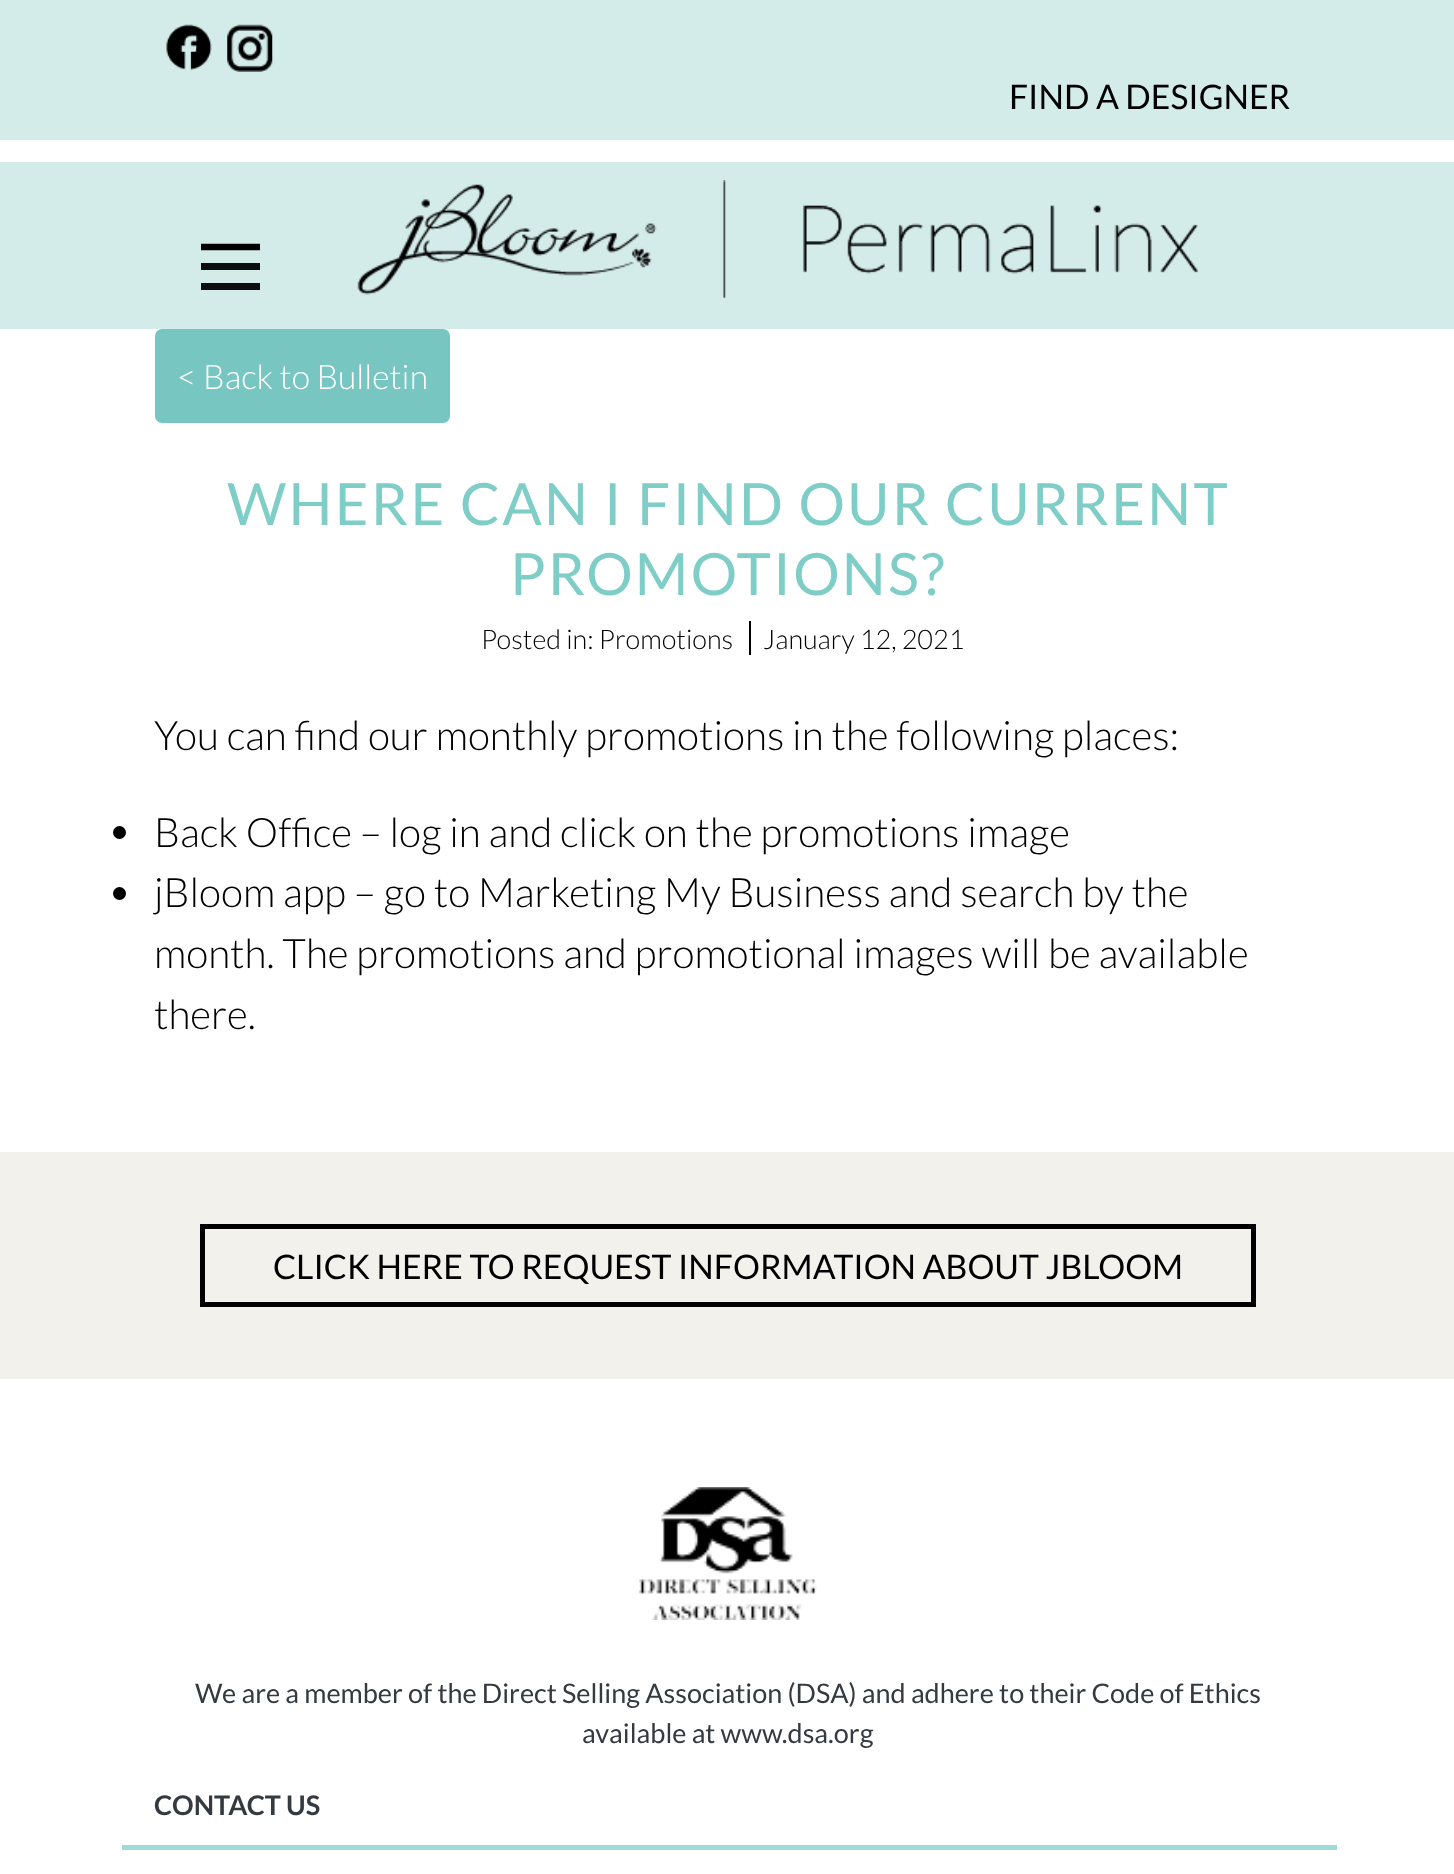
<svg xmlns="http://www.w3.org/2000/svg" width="1454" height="1874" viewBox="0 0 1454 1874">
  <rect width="100%" height="100%" fill="rgb(255,255,255)"/>
  <rect x="0" y="0" width="1454" height="140" fill="rgb(211,236,234)"/>
  <image x="166" y="24" width="46" height="46" href="pic1.png"/>
  <image x="227" y="24" width="46" height="48" href="pic2.png"/>
  <text x="1009" y="109" font-family="Lato" font-size="33.75" fill="rgb(0,0,0)">FIND A DESIGNER</text>
  <rect x="0" y="162" width="1454" height="167" fill="rgb(211,236,234)"/>
  <path d="M201 247H260" fill="none" stroke="rgb(0,0,0)" stroke-width="6.6"/>
  <rect x="201" y="263" width="59" height="7" fill="rgb(12,13,13)"/>
  <rect x="201" y="283" width="59" height="7" fill="rgb(12,13,13)"/>
  <image x="357" y="180" width="841" height="118" href="pic3.png"/>
  <rect x="155" y="329" width="295" height="94" rx="7" fill="rgb(119,198,193)"/>
  <text x="177" y="389" font-family="Lato" font-size="33.75" font-weight="300" fill="rgb(255,255,255)">&lt; Back to Bulletin</text>
  <g font-family="Lato" font-size="58.2" letter-spacing="2.25" fill="rgb(126,205,198)">
    <text x="227" y="525">WHERE CAN I FIND OUR CURRENT</text>
    <text x="510" y="595">PROMOTIONS?</text>
  </g>
  <g font-family="Lato" font-size="27" font-weight="300" fill="rgb(0,0,0)">
    <text x="481" y="649">Posted in: Promotions</text>
    <text x="763" y="649">January 12, 2021</text>
  </g>
  <rect x="749" y="621" width="2" height="34" fill="rgb(0,0,0)"/>
  <text x="154" y="750" font-family="Lato" font-size="40.5" font-weight="300" fill="rgb(0,0,0)">You can find our monthly promotions in the following places:</text>
  <circle cx="119.5" cy="832.5" r="6.5" fill="rgb(0,0,0)"/>
  <text x="154" y="847" font-family="Lato" font-size="40.5" font-weight="300" fill="rgb(0,0,0)">Back Office – log in and click on the promotions image</text>
  <circle cx="119.5" cy="893.5" r="6.5" fill="rgb(0,0,0)"/>
  <g font-family="Lato" font-size="40.5" font-weight="300" fill="rgb(0,0,0)">
    <text>
      <tspan x="154" y="907">jBloom app – go to Marketing My Business and search by the</tspan>
      <tspan x="154" y="968">month. The promotions and promotional images will be available</tspan>
      <tspan x="154" y="1029">there.</tspan>
    </text>
  </g>
  <rect x="0" y="1152" width="1454" height="227" fill="rgb(242,241,236)"/>
  <rect x="202.5" y="1226.5" width="1051" height="78" fill="none" stroke="rgb(0,0,0)" stroke-width="5"/>
  <text x="273" y="1279" font-family="Lato" font-size="33.75" fill="rgb(0,0,0)">CLICK HERE TO REQUEST INFORMATION ABOUT JBLOOM</text>
  <image x="639" y="1487" width="178" height="133" href="pic4.png"/>
  <g font-family="Lato" font-size="27" fill="rgb(52,58,64)">
    <text x="195" y="1703">We are a member of the Direct Selling Association (DSA) and adhere to their Code of Ethics</text>
    <text x="582" y="1743">available at www.dsa.org</text>
  </g>
  <rect x="122" y="1845" width="1215" height="5" fill="rgb(156,219,217)"/>
  <text x="154" y="1815" font-family="Lato" font-size="27" font-weight="bold" fill="rgb(52,58,64)">CONTACT US</text>
</svg>
